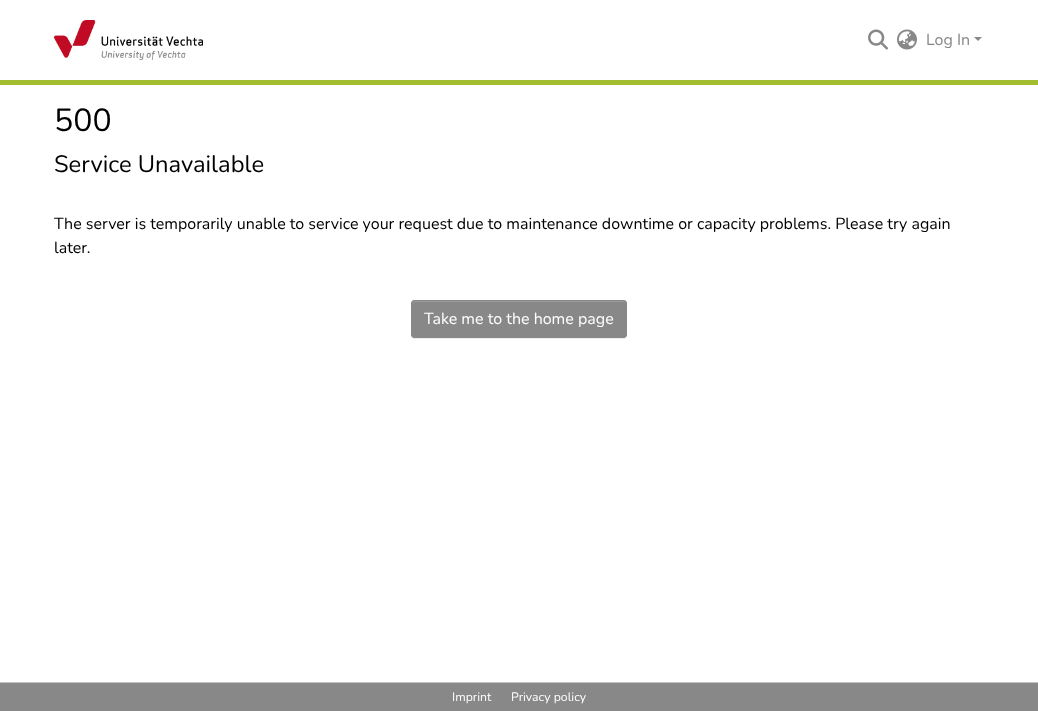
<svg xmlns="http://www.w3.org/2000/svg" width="1038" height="711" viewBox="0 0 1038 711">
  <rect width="100%" height="100%" fill="rgb(255,255,255)"/>
  <rect x="0" y="80" width="1038" height="5" fill="rgb(162,189,48)"/>
  <image x="54" y="20" width="149" height="40" href="pic1.png"/>
  <image x="868" y="29" width="20" height="21" href="pic2.png"/>
  <image x="897" y="29" width="20" height="21" href="pic3.png"/>
  <text x="926" y="45" font-family="Nunito" font-size="16" fill="rgb(136,136,136)">Log In</text>
  <path d="M974 37H982L978 41Z" fill="rgb(136,136,136)"/>
  <text x="54" y="131" font-family="Nunito" font-size="32" fill="rgb(0,0,0)">500</text>
  <text x="54" y="172" font-family="Nunito" font-size="23.75" fill="rgb(0,0,0)">Service Unavailable</text>
  <g font-family="Nunito" font-size="16" fill="rgb(0,0,0)">
    <text>
      <tspan x="54" y="229">The server is temporarily unable to service your request due to maintenance downtime or capacity problems. Please try again</tspan>
      <tspan x="54" y="253">later.</tspan>
    </text>
  </g>
  <rect x="411" y="301" width="216" height="38" rx="4" fill="rgba(0,0,0,0.07)" filter="blur(0.5px)"/>
  <rect x="411" y="300" width="216" height="38" rx="4" fill="rgb(136,136,136)"/>
  <path d="M415 302H623C625 302 626 303 626 305V304C626 302 625 301 623 301H415C413 301 412 302 412 304V305C412 303 413 302 415 302Z" fill="rgb(154,154,154)"/>
  <rect x="411.5" y="300.5" width="215" height="37" rx="3.5" fill="none" stroke="rgb(136,136,136)"/>
  <text x="424" y="324" font-family="Nunito" font-size="16" fill="rgb(255,255,255)">Take me to the home page</text>
  <rect x="0" y="683" width="1038" height="28" fill="rgb(136,136,136)"/>
  <rect x="0" y="682" width="1038" height="1" fill="rgb(195,195,195)"/>
  <g font-family="Nunito" font-size="12.25" fill="rgb(255,255,255)">
    <text x="452" y="701">Imprint</text>
    <text x="511" y="701">Privacy policy</text>
  </g>
</svg>
